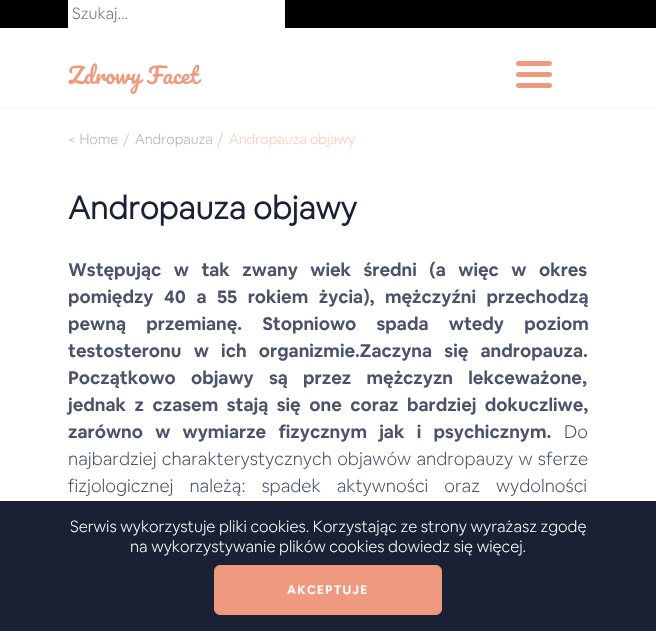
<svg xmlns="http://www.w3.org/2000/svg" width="656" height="631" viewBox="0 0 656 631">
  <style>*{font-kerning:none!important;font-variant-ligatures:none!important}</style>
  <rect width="100%" height="100%" fill="rgb(255,255,255)"/>
  <rect x="0" y="107" width="656" height="1" fill="rgb(243,246,253)"/>
  <rect x="0" y="0" width="656" height="28" fill="rgb(0,0,0)"/>
  <rect x="68" y="0" width="217" height="28" fill="rgb(255,255,255)"/>
  <text x="72" y="19" font-family="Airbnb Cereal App" font-size="16" font-weight="300" fill="rgb(117,117,117)">Szukaj...</text>
  <text x="68" y="84" font-family="Pacifico" font-size="22" fill="rgb(239,153,127)">Zdrowy Facet</text>
  <path d="M518.5 61H534V66H518.5C517 66 516 65 516 63.5C516 62 517 61 518.5 61Z" fill="rgb(239,153,127)"/>
  <path d="M534 61H549.5C551 61 552 62 552 63.5C552 65 551 66 549.5 66H534Z" fill="rgb(239,153,127)"/>
  <path d="M518.5 72H534V77H518.5C517 77 516 76 516 74.5C516 73 517 72 518.5 72Z" fill="rgb(239,153,127)"/>
  <path d="M534 72H549.5C551 72 552 73 552 74.5C552 76 551 77 549.5 77H534Z" fill="rgb(239,153,127)"/>
  <path d="M518.5 83H534V88H518.5C517 88 516 87 516 85.5C516 84 517 83 518.5 83Z" fill="rgb(239,153,127)"/>
  <path d="M534 83H549.5C551 83 552 84 552 85.5C552 87 551 88 549.5 88H534Z" fill="rgb(239,153,127)"/>
  <text x="68" y="144" font-family="Airbnb Cereal App" font-size="14" font-weight="300" fill="rgb(179,179,179)">&lt; Home</text>
  <text x="123" y="145" font-family="Airbnb Cereal App" font-size="16" font-weight="300" fill="rgb(204,204,204)">/</text>
  <text x="135" y="144" font-family="Airbnb Cereal App" font-size="14" font-weight="300" fill="rgb(179,179,179)">Andropauza</text>
  <text x="217" y="145" font-family="Airbnb Cereal App" font-size="16" font-weight="300" fill="rgb(204,204,204)">/</text>
  <text x="229" y="144" font-family="Airbnb Cereal App" font-size="14" font-weight="300" fill="rgb(247,204,191)">Andropauza objawy</text>
  <text x="68" y="219" font-family="Airbnb Cereal App" font-size="32" font-weight="bold" fill="rgb(27,33,53)">Andropauza objawy</text>
  <g font-family="'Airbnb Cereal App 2'" font-size="18" font-weight="bold" fill="rgb(75,82,106)">
    <text>
      <tspan x="68" y="276" word-spacing="8.75">Wstępując w tak zwany wiek średni (a więc w okres</tspan>
      <tspan x="68" y="303" word-spacing="6.75">pomiędzy 40 a 55 rokiem życia), mężczyźni przechodzą</tspan>
      <tspan x="68" y="330" word-spacing="16.5">pewną przemianę. Stopniowo spada wtedy poziom</tspan>
      <tspan x="68" y="357" word-spacing="8.5">testosteronu w ich organizmie.Zaczyna się andropauza.</tspan>
      <tspan x="68" y="384" word-spacing="11.5">Początkowo objawy są przez mężczyzn lekceważone,</tspan>
      <tspan x="68" y="411" word-spacing="4.75">jednak z czasem stają się one coraz bardziej dokuczliwe,</tspan>
      <tspan x="68" y="438" word-spacing="8.5">zarówno w wymiarze fizycznym jak i psychicznym.</tspan>
    </text>
  </g>
  <g font-family="Airbnb Cereal App" font-size="18" font-weight="300" fill="rgb(75,82,106)">
    <text x="564" y="438">Do</text>
    <text>
      <tspan x="68" y="465" word-spacing="1.25">najbardziej charakterystycznych objawów andropauzy w sferze</tspan>
      <tspan x="68" y="492" word-spacing="12">fizjologicznej należą: spadek aktywności oraz wydolności</tspan>
    </text>
  </g>
  <rect x="0" y="501" width="656" height="130" fill="rgb(27,33,53)"/>
  <g font-family="Airbnb Cereal App" font-size="16" font-weight="300" fill="rgb(255,255,255)">
    <text x="70" y="532">Serwis wykorzystuje pliki cookies. Korzystając ze strony wyrażasz zgodę</text>
    <text x="130" y="552">na wykorzystywanie plików cookies dowiedz się więcej.</text>
  </g>
  <rect x="214.5" y="565.5" width="227" height="49" rx="5.5" fill="rgb(239,153,127)" stroke="rgb(239,153,127)"/>
  <text x="287" y="594" font-family="'Airbnb Cereal App 2'" font-size="12" font-weight="bold" letter-spacing="1.25" fill="rgb(255,255,255)">AKCEPTUJE</text>
</svg>
